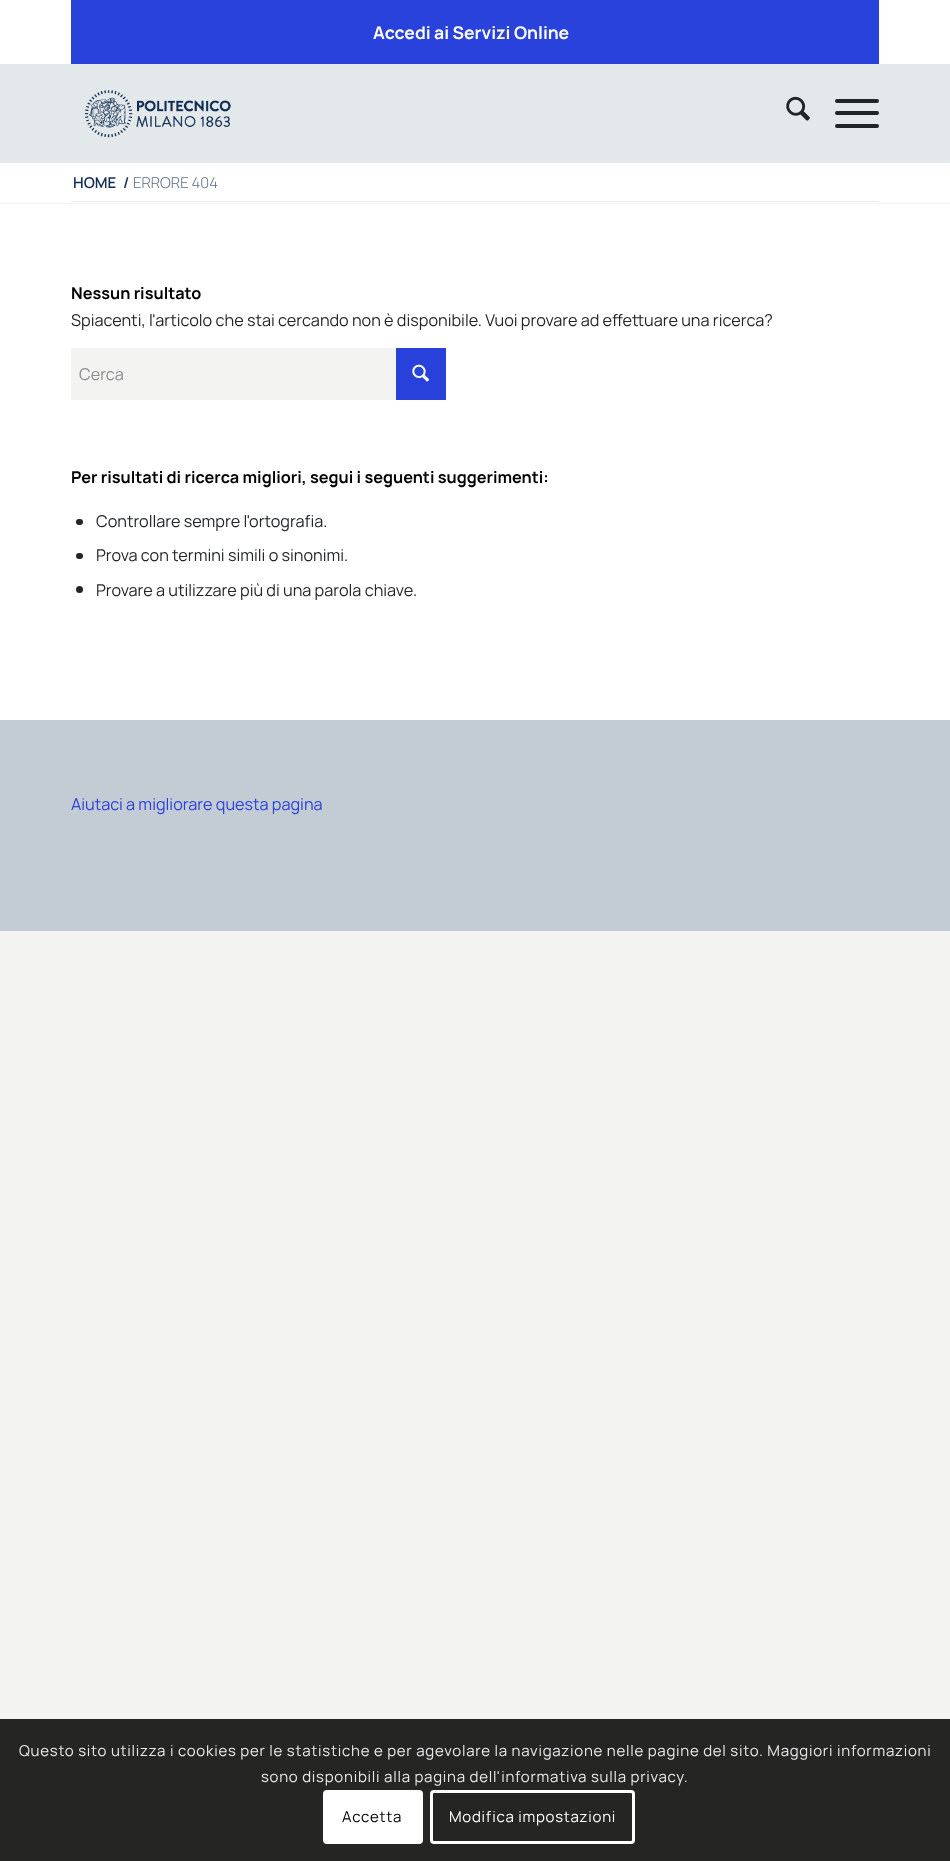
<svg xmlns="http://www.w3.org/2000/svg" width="950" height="1861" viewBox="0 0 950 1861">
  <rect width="100%" height="100%" fill="rgb(243,243,241)"/>
  <rect x="0" y="0" width="950" height="64" fill="rgb(255,255,255)"/>
  <rect x="71" y="0" width="808" height="64" fill="rgb(41,66,219)"/>
  <text x="373" y="39" font-family="Manrope" font-size="17.5" font-weight="bold" fill="rgb(255,255,255)">Accedi ai Servizi Online</text>
  <rect x="0" y="64" width="950" height="99" fill="rgb(227,232,235)"/>
  <image x="84" y="90" width="147" height="48" href="pic1.png"/>
  <image x="786" y="96" width="24" height="25" href="pic2.png"/>
  <rect x="835" y="111" width="44" height="4" rx="2" fill="rgb(33,37,41)"/>
  <rect x="835" y="99" width="44" height="4" rx="2" fill="rgb(33,37,41)"/>
  <rect x="835" y="124" width="44" height="4" rx="2" fill="rgb(33,37,41)"/>
  <rect x="0" y="163" width="950" height="40" fill="rgb(255,255,255)"/>
  <rect x="71" y="201" width="808" height="1" fill="rgb(235,235,235)"/>
  <g font-family="Manrope" font-size="15" font-weight="600" fill="rgb(16,44,83)">
    <text x="73" y="188">HOME</text>
    <text x="123" y="188">/</text>
  </g>
  <text x="133" y="188" font-family="Manrope" font-size="15" font-weight="300" fill="rgb(92,111,130)">ERRORE 404</text>
  <rect x="0" y="204" width="950" height="516" fill="rgb(255,255,255)"/>
  <text x="71" y="299" font-family="Manrope" font-size="16.25" font-weight="bold" fill="rgb(0,0,0)">Nessun risultato</text>
  <text x="71" y="326" font-family="Manrope" font-size="16.25" fill="rgb(33,37,41)">Spiacenti, l'articolo che stai cercando non è disponibile. Vuoi provare ad effettuare una ricerca?</text>
  <rect x="396" y="348" width="50" height="52" fill="rgb(41,65,219)"/>
  <rect x="71" y="348" width="325" height="52" fill="rgb(243,243,241)"/>
  <text x="79" y="380" font-family="Manrope" font-size="16.25" fill="rgb(138,140,141)">Cerca</text>
  <image x="412" y="364" width="17" height="18" href="pic3.png"/>
  <text x="71" y="483" font-family="Manrope" font-size="16.25" font-weight="bold" fill="rgb(0,0,0)">Per risultati di ricerca migliori, segui i seguenti suggerimenti:</text>
  <rect x="76" y="519" width="7" height="6" rx="3" fill="rgb(33,37,41)"/>
  <text x="96" y="527" font-family="Manrope" font-size="16.25" fill="rgb(33,37,41)">Controllare sempre l'ortografia.</text>
  <rect x="76" y="553" width="7" height="6" rx="3" fill="rgb(33,37,41)"/>
  <text x="96" y="561" font-family="Manrope" font-size="16.25" fill="rgb(33,37,41)">Prova con termini simili o sinonimi.</text>
  <circle cx="79.5" cy="589.5" r="3.5" fill="rgb(33,37,41)"/>
  <text x="96" y="596" font-family="Manrope" font-size="16.25" fill="rgb(33,37,41)">Provare a utilizzare più di una parola chiave.</text>
  <rect x="0" y="720" width="950" height="211" fill="rgb(195,203,212)"/>
  <text x="71" y="810" font-family="Manrope" font-size="16.25" fill="rgb(41,65,219)">Aiutaci a migliorare questa pagina</text>
  <rect x="0" y="1719" width="950" height="142" fill="rgb(37,37,36)"/>
  <g font-family="Manrope" font-size="15" letter-spacing="0.75" fill="rgb(233,233,233)">
    <text x="19" y="1756">Questo sito utilizza i cookies per le statistiche e per agevolare la navigazione nelle pagine del sito. Maggiori informazioni</text>
    <text x="261" y="1782">sono disponibili alla pagina dell'informativa sulla privacy.</text>
  </g>
  <rect x="323" y="1790" width="100" height="54" rx="4" fill="rgb(255,255,255)"/>
  <text x="342" y="1822" font-family="Manrope" font-size="15" letter-spacing="0.75" fill="rgb(0,0,0)">Accetta</text>
  <rect x="431.5" y="1791.5" width="202" height="51" rx="2.5" fill="none" stroke="rgb(255,255,255)" stroke-width="3"/>
  <text x="449" y="1822" font-family="Manrope" font-size="15" letter-spacing="0.75" fill="rgb(255,255,255)">Modifica impostazioni</text>
</svg>
